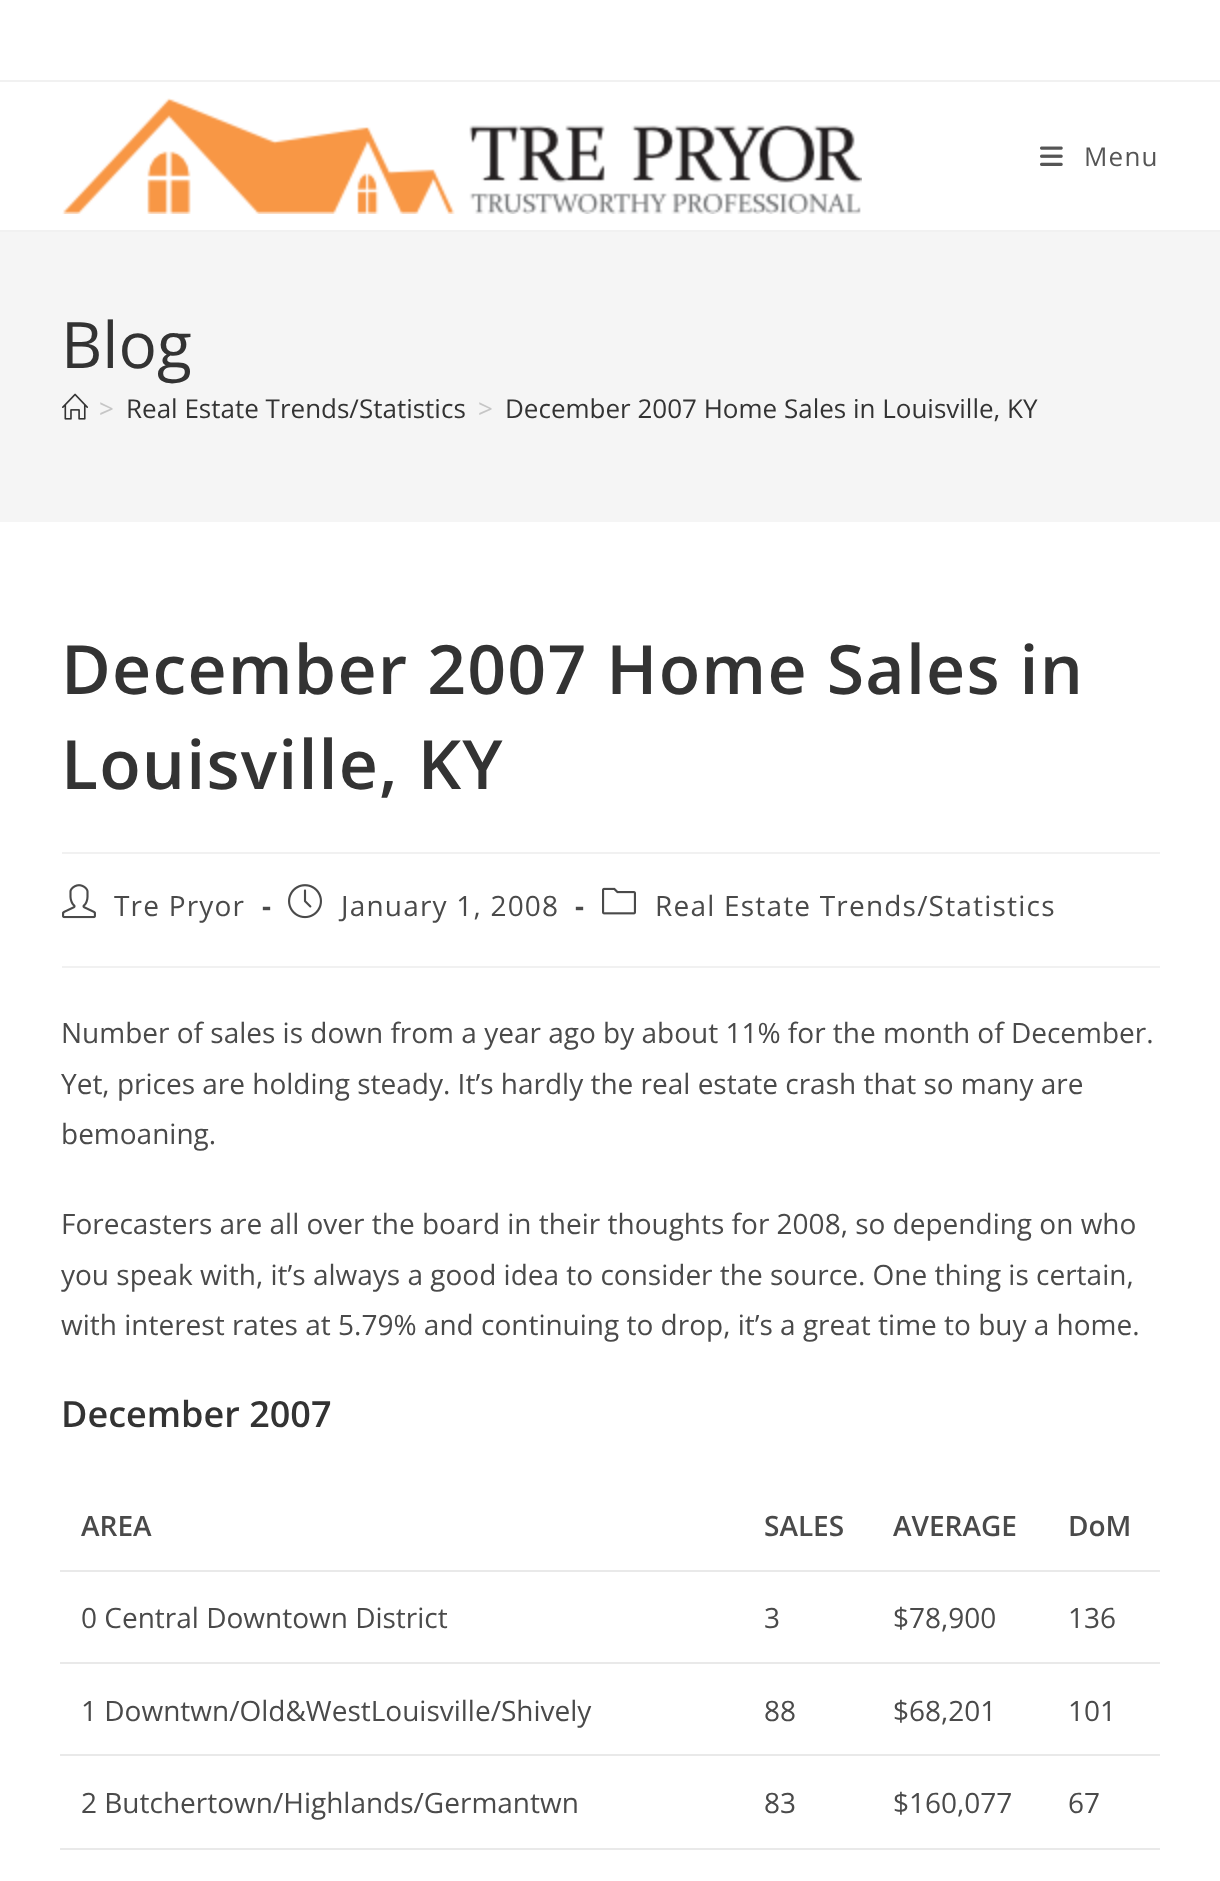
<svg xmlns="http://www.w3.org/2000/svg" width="1220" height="1881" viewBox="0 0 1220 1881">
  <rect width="100%" height="100%" fill="rgb(255,255,255)"/>
  <rect x="0" y="80" width="1220" height="2" fill="rgb(241,241,241)"/>
  <rect x="0" y="230" width="1220" height="2" fill="rgb(241,241,241)"/>
  <image x="62" y="98" width="800" height="116" href="pic1.png"/>
  <image x="1040" y="146" width="23" height="20" href="pic2.png"/>
  <text x="1084" y="166" font-family="Open Sans" font-size="26" letter-spacing="1.2" fill="rgb(85,85,85)">Menu</text>
  <rect x="0" y="232" width="1220" height="290" fill="rgb(245,245,245)"/>
  <text x="61" y="368" font-family="Open Sans" font-size="64" fill="rgb(51,51,51)">Blog</text>
  <image x="62" y="393" width="26" height="27" href="pic3.png"/>
  <text x="99" y="418" font-family="Open Sans" font-size="26" fill="rgb(198,198,198)">&gt;</text>
  <text x="126" y="418" font-family="Open Sans" font-size="26" fill="rgb(51,51,51)">Real Estate Trends/Statistics</text>
  <text x="478" y="418" font-family="Open Sans" font-size="26" fill="rgb(198,198,198)">&gt;</text>
  <text x="505" y="418" font-family="Open Sans" font-size="26" fill="rgb(51,51,51)">December 2007 Home Sales in Louisville, KY</text>
  <rect x="62" y="852" width="1098" height="2" fill="rgb(241,241,241)"/>
  <g font-family="Open Sans" font-size="68" font-weight="600" letter-spacing="1.2" fill="rgb(51,51,51)">
    <text>
      <tspan x="61" y="694">December 2007 Home Sales in</tspan>
      <tspan x="61" y="789">Louisville, KY</tspan>
    </text>
  </g>
  <rect x="62" y="966" width="1098" height="2" fill="rgb(241,241,241)"/>
  <image x="62" y="884" width="34" height="35" href="pic4.png"/>
  <text x="114" y="916" font-family="Open Sans" font-size="28" letter-spacing="1.2" fill="rgb(74,74,74)">Tre Pryor</text>
  <text x="262" y="916" font-family="Open Sans" font-size="28" font-weight="bold" letter-spacing="1.2" fill="rgb(74,74,74)">-</text>
  <image x="288" y="884" width="34" height="35" href="pic5.png"/>
  <text x="341" y="916" font-family="Open Sans" font-size="28" letter-spacing="1.2" fill="rgb(74,74,74)">January 1, 2008</text>
  <text x="575" y="916" font-family="Open Sans" font-size="28" font-weight="bold" letter-spacing="1.2" fill="rgb(74,74,74)">-</text>
  <image x="602" y="887" width="34" height="28" href="pic6.png"/>
  <text x="655" y="916" font-family="Open Sans" font-size="28" letter-spacing="1.2" fill="rgb(74,74,74)">Real Estate Trends/Statistics</text>
  <g font-family="Open Sans" font-size="28" fill="rgb(74,74,74)">
    <text>
      <tspan x="61" y="1043">Number of sales is down from a year ago by about 11% for the month of December.</tspan>
      <tspan x="61" y="1094">Yet, prices are holding steady. It’s hardly the real estate crash that so many are</tspan>
      <tspan x="61" y="1144">bemoaning.</tspan>
    </text>
    <text>
      <tspan x="61" y="1234">Forecasters are all over the board in their thoughts for 2008, so depending on who</tspan>
      <tspan x="61" y="1285">you speak with, it’s always a good idea to consider the source. One thing is certain,</tspan>
      <tspan x="61" y="1335">with interest rates at 5.79% and continuing to drop, it’s a great time to buy a home.</tspan>
    </text>
  </g>
  <text x="61" y="1427" font-family="Open Sans" font-size="36" font-weight="600" fill="rgb(51,51,51)">December 2007</text>
  <g font-family="Open Sans" font-size="28" font-weight="600" fill="rgb(74,74,74)">
    <text x="81" y="1536">AREA</text>
    <text x="764" y="1536">SALES</text>
    <text x="893" y="1536">AVERAGE</text>
  </g>
  <rect x="60" y="1570" width="1100" height="2" fill="rgb(233,233,233)"/>
  <text x="1068" y="1536" font-family="Open Sans" font-size="28" font-weight="600" fill="rgb(74,74,74)">DoM</text>
  <g font-family="Open Sans" font-size="28" fill="rgb(74,74,74)">
    <text x="81" y="1628">0 Central Downtown District</text>
    <text x="764" y="1628">3</text>
    <text x="893" y="1628">$78,900</text>
  </g>
  <rect x="60" y="1662" width="1100" height="2" fill="rgb(233,233,233)"/>
  <g font-family="Open Sans" font-size="28" fill="rgb(74,74,74)">
    <text x="1068" y="1628">136</text>
    <text x="81" y="1721">1 Downtwn/Old&amp;WestLouisville/Shively</text>
    <text x="764" y="1721">88</text>
    <text x="893" y="1721">$68,201</text>
  </g>
  <rect x="60" y="1754" width="1100" height="2" fill="rgb(233,233,233)"/>
  <g font-family="Open Sans" font-size="28" fill="rgb(74,74,74)">
    <text x="1068" y="1721">101</text>
    <text x="81" y="1813">2 Butchertown/Highlands/Germantwn</text>
    <text x="764" y="1813">83</text>
    <text x="893" y="1813">$160,077</text>
  </g>
  <rect x="60" y="1848" width="1100" height="2" fill="rgb(233,233,233)"/>
  <text x="1068" y="1813" font-family="Open Sans" font-size="28" fill="rgb(74,74,74)">67</text>
</svg>
